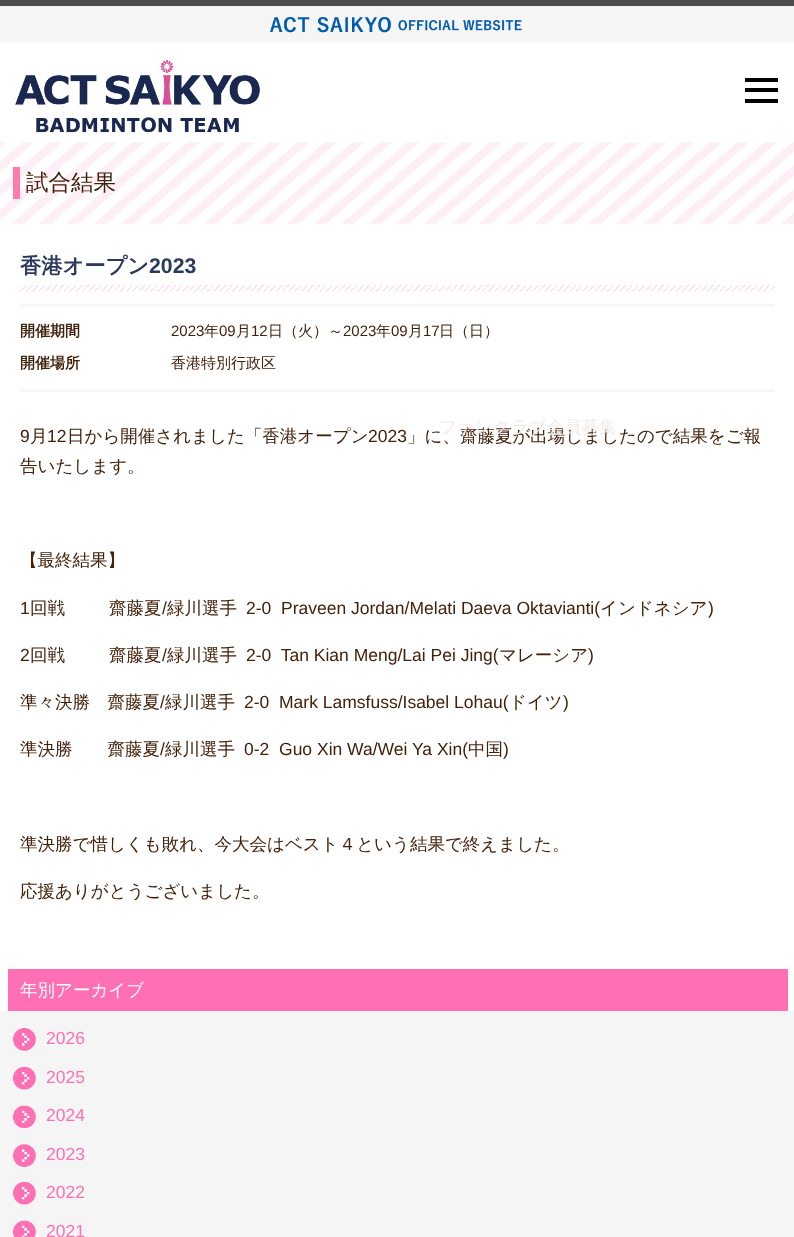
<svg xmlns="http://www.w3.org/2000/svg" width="794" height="1237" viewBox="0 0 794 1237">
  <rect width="100%" height="100%" fill="rgb(255,255,255)"/>
  <image x="0" y="142" width="794" height="82" href="pic1.png"/>
  <rect x="13" y="167" width="7" height="32" fill="rgb(255,123,172)"/>
  <text x="26" y="190" font-family="WenQuanYi Zen Hei" font-size="22.5" font-weight="500" fill="rgb(66,33,11)">試合結果</text>
  <image x="20" y="285" width="755" height="7" href="pic2.png"/>
  <text x="20" y="273" font-family="WenQuanYi Zen Hei" font-size="21.25" font-weight="bold" fill="rgb(43,57,92)">香港オープン</text>
  <text x="149" y="273" font-family="Liberation Sans" font-size="21.25" font-weight="bold" fill="rgb(43,57,92)">2023</text>
  <rect x="20" y="304" width="755" height="3" fill="rgb(245,245,245)"/>
  <rect x="20" y="389" width="755" height="3" fill="rgb(245,245,245)"/>
  <text x="20" y="336" font-family="WenQuanYi Zen Hei" font-size="15" font-weight="bold" fill="rgb(66,33,11)">開催期間</text>
  <text x="171" y="336" font-family="Liberation Sans" font-size="15" fill="rgb(66,33,11)">2023</text>
  <text x="204" y="336" font-family="WenQuanYi Zen Hei" font-size="15" font-weight="500" fill="rgb(66,33,11)">年</text>
  <text x="219" y="336" font-family="Liberation Sans" font-size="15" fill="rgb(66,33,11)">09</text>
  <text x="236" y="336" font-family="WenQuanYi Zen Hei" font-size="15" font-weight="500" fill="rgb(66,33,11)">月</text>
  <text x="251" y="336" font-family="Liberation Sans" font-size="15" fill="rgb(66,33,11)">12</text>
  <text x="268" y="336" font-family="WenQuanYi Zen Hei" font-size="15" font-weight="500" fill="rgb(66,33,11)">日（火）～</text>
  <text x="343" y="336" font-family="Liberation Sans" font-size="15" fill="rgb(66,33,11)">2023</text>
  <text x="376" y="336" font-family="WenQuanYi Zen Hei" font-size="15" font-weight="500" fill="rgb(66,33,11)">年</text>
  <text x="391" y="336" font-family="Liberation Sans" font-size="15" fill="rgb(66,33,11)">09</text>
  <text x="408" y="336" font-family="WenQuanYi Zen Hei" font-size="15" font-weight="500" fill="rgb(66,33,11)">月</text>
  <text x="423" y="336" font-family="Liberation Sans" font-size="15" fill="rgb(66,33,11)">17</text>
  <text x="439" y="336" font-family="WenQuanYi Zen Hei" font-size="15" font-weight="500" fill="rgb(66,33,11)">日（日）</text>
  <text x="20" y="368" font-family="WenQuanYi Zen Hei" font-size="15" font-weight="bold" fill="rgb(66,33,11)">開催場所</text>
  <text x="171" y="368" font-family="WenQuanYi Zen Hei" font-size="15" font-weight="500" fill="rgb(66,33,11)">香港特別行政区</text>
  <text x="20" y="442" font-family="Liberation Sans" font-size="17.5" fill="rgb(66,33,11)">9</text>
  <text x="30" y="442" font-family="WenQuanYi Zen Hei" font-size="17.5" font-weight="500" fill="rgb(66,33,11)">月</text>
  <text x="47" y="442" font-family="Liberation Sans" font-size="17.5" fill="rgb(66,33,11)">12</text>
  <text x="67" y="442" font-family="WenQuanYi Zen Hei" font-size="17.5" font-weight="500" fill="rgb(66,33,11)">日から開催されました「香港オープン</text>
  <text x="368" y="442" font-family="Liberation Sans" font-size="17.5" fill="rgb(66,33,11)">2023</text>
  <g font-family="WenQuanYi Zen Hei" font-size="17.5" font-weight="500" fill="rgb(66,33,11)">
    <text x="407" y="442">」に、齋藤夏が出場しましたので結果をご報</text>
    <text x="20" y="472">告いたします。</text>
    <text x="20" y="566">【最終結果】</text>
  </g>
  <text x="20" y="614" font-family="Liberation Sans" font-size="17.5" fill="rgb(66,33,11)">1</text>
  <g font-family="WenQuanYi Zen Hei" font-size="17.5" font-weight="500" fill="rgb(66,33,11)">
    <text x="30" y="614">回戦</text>
    <text x="109" y="614">齋藤夏</text>
  </g>
  <text x="162" y="614" font-family="Liberation Sans" font-size="17.5" fill="rgb(66,33,11)">/</text>
  <text x="167" y="614" font-family="WenQuanYi Zen Hei" font-size="17.5" font-weight="500" fill="rgb(66,33,11)">緑川選手</text>
  <text x="246" y="614" font-family="Liberation Sans" font-size="17.5" fill="rgb(66,33,11)" xml:space="preserve">2-0  Praveen Jordan/Melati Daeva Oktavianti(</text>
  <text x="600" y="614" font-family="WenQuanYi Zen Hei" font-size="17.5" font-weight="500" fill="rgb(66,33,11)">インドネシア</text>
  <g font-family="Liberation Sans" font-size="17.5" fill="rgb(66,33,11)">
    <text x="708" y="614">)</text>
    <text x="20" y="661">2</text>
  </g>
  <g font-family="WenQuanYi Zen Hei" font-size="17.5" font-weight="500" fill="rgb(66,33,11)">
    <text x="30" y="661">回戦</text>
    <text x="109" y="661">齋藤夏</text>
  </g>
  <text x="162" y="661" font-family="Liberation Sans" font-size="17.5" fill="rgb(66,33,11)">/</text>
  <text x="167" y="661" font-family="WenQuanYi Zen Hei" font-size="17.5" font-weight="500" fill="rgb(66,33,11)">緑川選手</text>
  <text x="246" y="661" font-family="Liberation Sans" font-size="17.5" fill="rgb(66,33,11)" xml:space="preserve">2-0  Tan Kian Meng/Lai Pei Jing(</text>
  <text x="499" y="661" font-family="WenQuanYi Zen Hei" font-size="17.5" font-weight="500" fill="rgb(66,33,11)">マレーシア</text>
  <text x="588" y="661" font-family="Liberation Sans" font-size="17.5" fill="rgb(66,33,11)">)</text>
  <text x="20" y="708" font-family="WenQuanYi Zen Hei" font-size="17.5" font-weight="500" fill="rgb(66,33,11)">準々決勝　齋藤夏</text>
  <text x="160" y="708" font-family="Liberation Sans" font-size="17.5" fill="rgb(66,33,11)">/</text>
  <text x="165" y="708" font-family="WenQuanYi Zen Hei" font-size="17.5" font-weight="500" fill="rgb(66,33,11)">緑川選手</text>
  <text x="244" y="708" font-family="Liberation Sans" font-size="17.5" fill="rgb(66,33,11)" xml:space="preserve">2-0  Mark Lamsfuss/Isabel Lohau(</text>
  <text x="509" y="708" font-family="WenQuanYi Zen Hei" font-size="17.5" font-weight="500" fill="rgb(66,33,11)">ドイツ</text>
  <text x="563" y="708" font-family="Liberation Sans" font-size="17.5" fill="rgb(66,33,11)">)</text>
  <text x="20" y="755" font-family="WenQuanYi Zen Hei" font-size="17.5" font-weight="500" fill="rgb(66,33,11)">準決勝　　齋藤夏</text>
  <text x="160" y="755" font-family="Liberation Sans" font-size="17.5" fill="rgb(66,33,11)">/</text>
  <text x="165" y="755" font-family="WenQuanYi Zen Hei" font-size="17.5" font-weight="500" fill="rgb(66,33,11)">緑川選手</text>
  <text x="244" y="755" font-family="Liberation Sans" font-size="17.5" fill="rgb(66,33,11)" xml:space="preserve">0-2  Guo Xin Wa/Wei Ya Xin(</text>
  <text x="468" y="755" font-family="WenQuanYi Zen Hei" font-size="17.5" font-weight="500" fill="rgb(66,33,11)">中国</text>
  <text x="503" y="755" font-family="Liberation Sans" font-size="17.5" fill="rgb(66,33,11)">)</text>
  <g font-family="WenQuanYi Zen Hei" font-size="17.5" font-weight="500" fill="rgb(66,33,11)">
    <text x="20" y="850">準決勝で惜しくも敗れ、今大会はベスト４という結果で終えました。</text>
    <text x="20" y="897">応援ありがとうございました。</text>
  </g>
  <rect x="8" y="969" width="780" height="42" fill="rgb(255,111,179)"/>
  <text x="20" y="996" font-family="WenQuanYi Zen Hei" font-size="17.5" font-weight="500" fill="rgb(255,255,255)">年別アーカイブ</text>
  <rect x="0" y="1011" width="794" height="226" fill="rgb(245,245,245)"/>
  <image x="13" y="1028" width="23" height="23" href="pic3.png"/>
  <text x="46" y="1044" font-family="Liberation Sans" font-size="17.5" fill="rgb(255,111,179)">2026</text>
  <image x="13" y="1067" width="23" height="23" href="pic4.png"/>
  <text x="46" y="1083" font-family="Liberation Sans" font-size="17.5" fill="rgb(255,111,179)">2025</text>
  <image x="13" y="1105" width="23" height="23" href="pic5.png"/>
  <text x="46" y="1121" font-family="Liberation Sans" font-size="17.5" fill="rgb(255,111,179)">2024</text>
  <image x="13" y="1144" width="23" height="23" href="pic6.png"/>
  <text x="46" y="1160" font-family="Liberation Sans" font-size="17.5" fill="rgb(255,111,179)">2023</text>
  <image x="13" y="1182" width="23" height="23" href="pic4.png"/>
  <text x="46" y="1198" font-family="Liberation Sans" font-size="17.5" fill="rgb(255,111,179)">2022</text>
  <image x="13" y="1220" width="23" height="17" href="pic7.png"/>
  <text x="46" y="1237" font-family="Liberation Sans" font-size="17.5" fill="rgb(255,111,179)">2021</text>
  <rect x="0" y="0" width="794" height="6" fill="rgb(77,77,77)"/>
  <rect x="0" y="6" width="794" height="37" fill="rgb(245,245,245)"/>
  <image x="270" y="17" width="252" height="16" href="pic8.png"/>
  <image x="15" y="60" width="245" height="73" href="pic9.png"/>
  <rect x="745" y="99" width="33" height="4" fill="rgb(0,0,0)"/>
  <rect x="745" y="88" width="33" height="4" fill="rgb(0,0,0)"/>
  <rect x="745" y="78" width="33" height="4" fill="rgb(0,0,0)"/>
  <text x="439" y="433" font-family="WenQuanYi Zen Hei" font-size="17.5" font-weight="500" fill="rgb(239,236,234)">ファンクラブ会員募集</text>
</svg>
